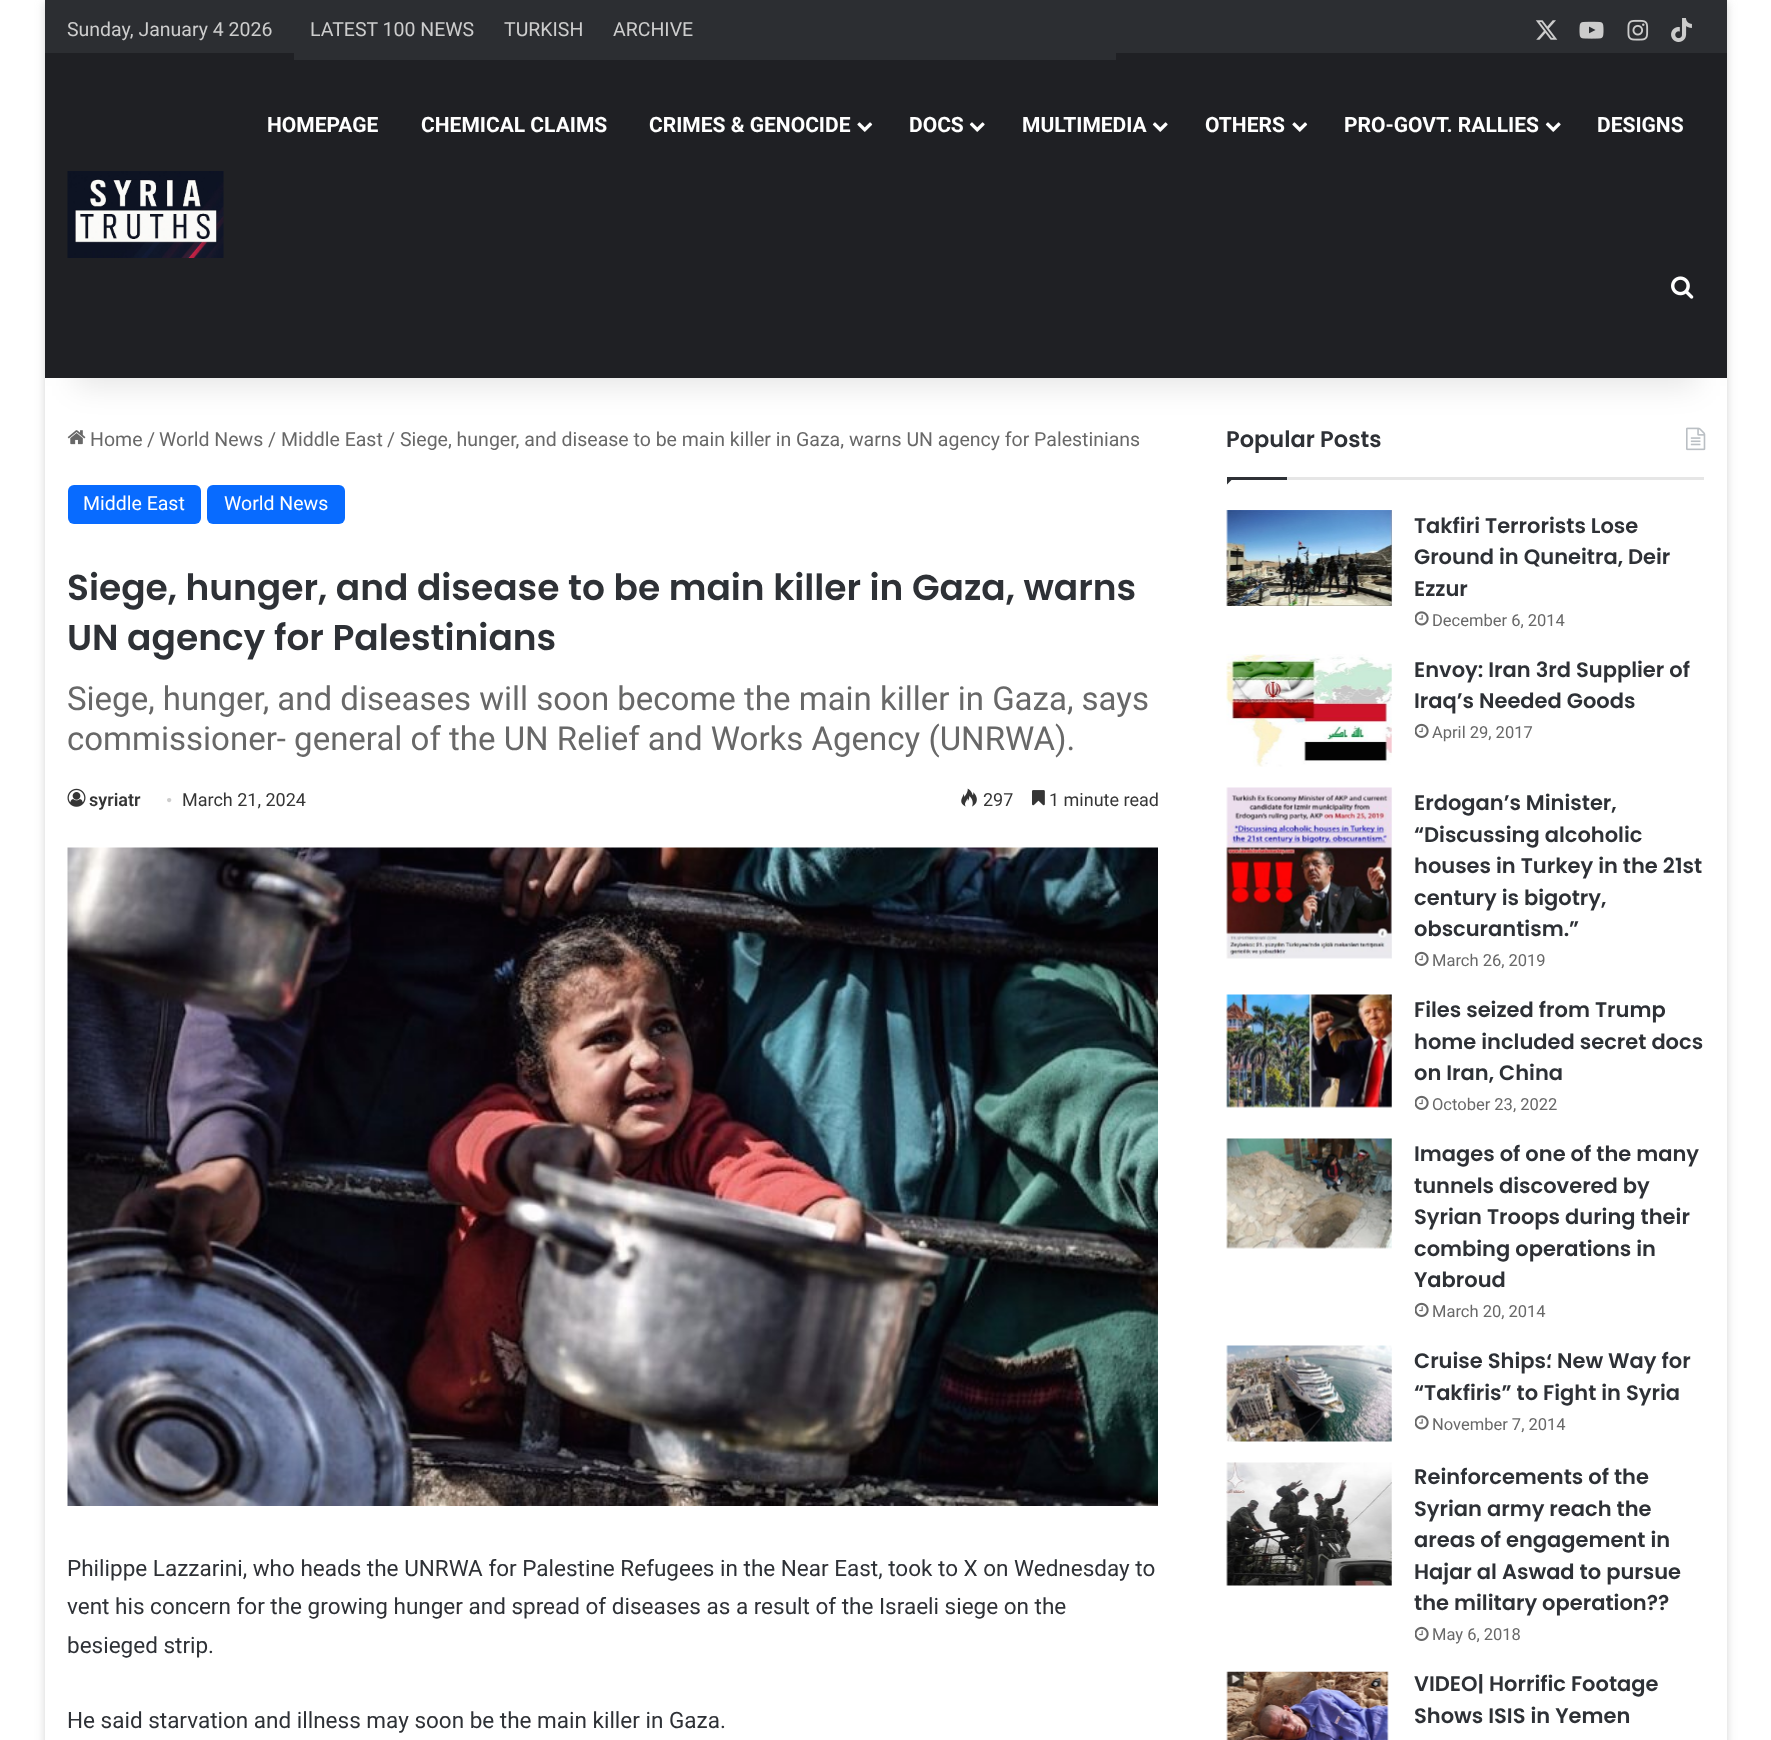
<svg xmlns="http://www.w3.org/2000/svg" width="1771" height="1740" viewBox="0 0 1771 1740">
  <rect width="100%" height="100%" fill="rgb(255,255,255)"/>
  <rect x="45" y="2" width="1682" height="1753" fill="rgba(171,171,171,0.5)" filter="blur(5px)"/>
  <rect x="45" y="378" width="1682" height="1362" fill="rgb(255,255,255)"/>
  <image x="67" y="430" width="19" height="15" href="pic9.png"/>
  <image x="1686" y="427" width="20" height="24" href="pic14.png"/>
  <rect x="75" y="68" width="1622" height="318" fill="rgba(0,0,0,0.1)" filter="blur(15px)"/>
  <rect x="45" y="0" width="1682" height="53" fill="rgb(44,46,50)"/>
  <text x="67" y="36" font-family="Roboto" font-size="19.5" fill="rgb(205,205,205)">Sunday, January 4 2026</text>
  <rect x="45" y="53" width="1682" height="325" fill="rgb(31,32,36)"/>
  <rect x="294" y="53" width="822" height="7" fill="rgb(44,46,50)"/>
  <g font-family="Roboto" font-size="19.5" fill="rgb(205,205,205)">
    <text x="310" y="36">LATEST 100 NEWS</text>
    <text x="504" y="36">TURKISH</text>
    <text x="613" y="36">ARCHIVE</text>
  </g>
  <image x="1535" y="20" width="23" height="20" href="pic1.png"/>
  <image x="1579" y="21" width="25" height="18" href="pic2.png"/>
  <image x="1627" y="19" width="22" height="22" href="pic3.png"/>
  <image x="1671" y="18" width="21" height="24" href="pic4.png"/>
  <g font-family="Roboto" font-size="21" font-weight="bold" fill="rgb(255,255,255)">
    <text x="267" y="132">HOMEPAGE</text>
    <text x="421" y="132">CHEMICAL CLAIMS</text>
    <text x="649" y="132">CRIMES &amp; GENOCIDE</text>
  </g>
  <image x="857" y="122" width="16" height="10" href="pic5.png"/>
  <text x="909" y="132" font-family="Roboto" font-size="21" font-weight="bold" fill="rgb(255,255,255)">DOCS</text>
  <image x="969" y="122" width="16" height="10" href="pic6.png"/>
  <text x="1022" y="132" font-family="Roboto" font-size="21" font-weight="bold" fill="rgb(255,255,255)">MULTIMEDIA</text>
  <image x="1152" y="122" width="16" height="10" href="pic6.png"/>
  <text x="1205" y="132" font-family="Roboto" font-size="21" font-weight="bold" fill="rgb(255,255,255)">OTHERS</text>
  <image x="1292" y="122" width="16" height="10" href="pic5.png"/>
  <text x="1344" y="132" font-family="Roboto" font-size="21" font-weight="bold" fill="rgb(255,255,255)">PRO-GOVT. RALLIES</text>
  <image x="1545" y="122" width="16" height="10" href="pic6.png"/>
  <text x="1597" y="132" font-family="Roboto" font-size="21" font-weight="bold" fill="rgb(255,255,255)">DESIGNS</text>
  <image x="1671" y="276" width="23" height="23" href="pic7.png"/>
  <image x="67" y="171" width="157" height="87" href="pic8.png"/>
  <g font-family="Roboto" font-size="19.5" fill="rgb(104,104,104)">
    <text x="90" y="446">Home</text>
    <text x="147" y="446">/</text>
    <text x="159" y="446">World News</text>
    <text x="268" y="446">/</text>
    <text x="281" y="446">Middle East</text>
    <text x="387" y="446">/</text>
    <text x="400" y="446">Siege, hunger, and disease to be main killer in Gaza, warns UN agency for Palestinians</text>
  </g>
  <rect x="68" y="485" width="133" height="39" rx="6" fill="rgb(8,107,255)"/>
  <text x="83" y="510" font-family="Roboto" font-size="19.5" fill="rgb(255,255,255)">Middle East</text>
  <rect x="207" y="485" width="138" height="39" rx="6" fill="rgb(8,107,255)"/>
  <text x="224" y="510" font-family="Roboto" font-size="19.5" fill="rgb(255,255,255)">World News</text>
  <g font-family="Poppins" font-size="36" font-weight="600" fill="rgb(46,49,54)">
    <text>
      <tspan x="67" y="600">Siege, hunger, and disease to be main killer in Gaza, warns</tspan>
      <tspan x="67" y="650">UN agency for Palestinians</tspan>
    </text>
  </g>
  <g font-family="Roboto" font-size="33" fill="rgb(104,104,104)">
    <text>
      <tspan x="67" y="710">Siege, hunger, and diseases will soon become the main killer in Gaza, says</tspan>
      <tspan x="67" y="750">commissioner- general of the UN Relief and Works Agency (UNRWA).</tspan>
    </text>
  </g>
  <image x="67" y="788" width="19" height="19" href="pic10.png"/>
  <text x="89" y="806" font-family="Roboto" font-size="18" font-weight="600" fill="rgb(53,53,53)">syriatr</text>
  <text x="166" y="806" font-family="Liberation Serif" font-size="18" fill="rgb(205,205,205)">•</text>
  <text x="182" y="806" font-family="Roboto" font-size="18" fill="rgb(53,53,53)">March 21, 2024</text>
  <image x="961" y="788" width="16" height="19" href="pic11.png"/>
  <text x="983" y="806" font-family="Roboto" font-size="18" fill="rgb(53,53,53)">297</text>
  <image x="1032" y="790" width="13" height="16" href="pic12.png"/>
  <text x="1049" y="806" font-family="Roboto" font-size="18" fill="rgb(53,53,53)">1 minute read</text>
  <image x="67" y="847" width="1091" height="659" href="pic13.png"/>
  <g font-family="Roboto" font-size="22.5" fill="rgb(46,49,54)">
    <text>
      <tspan x="67" y="1576">Philippe Lazzarini, who heads the UNRWA for Palestine Refugees in the Near East, took to X on Wednesday to</tspan>
      <tspan x="67" y="1614">vent his concern for the growing hunger and spread of diseases as a result of the Israeli siege on the</tspan>
      <tspan x="67" y="1653">besieged strip.</tspan>
    </text>
    <text x="67" y="1728">He said starvation and illness may soon be the main killer in Gaza.</text>
  </g>
  <rect x="1287" y="477" width="417" height="3" fill="rgb(230,230,230)"/>
  <text x="1226" y="447" font-family="Poppins" font-size="22.5" font-weight="600" fill="rgb(46,49,54)">Popular Posts</text>
  <path d="M1227 477H1234.5L1227 484.5Z" fill="rgb(46,49,54)"/>
  <rect x="1227" y="477" width="60" height="3" fill="rgb(46,49,54)"/>
  <image x="1226" y="510" width="166" height="96" href="pic15.png"/>
  <g font-family="Poppins" font-size="21" font-weight="600" fill="rgb(46,49,54)">
    <text>
      <tspan x="1414" y="533">Takfiri Terrorists Lose</tspan>
      <tspan x="1414" y="564">Ground in Quneitra, Deir</tspan>
      <tspan x="1414" y="596">Ezzur</tspan>
    </text>
  </g>
  <image x="1415" y="611" width="14" height="15" href="pic16.png"/>
  <text x="1432" y="626" font-family="Roboto" font-size="16.5" fill="rgb(104,104,104)">December 6, 2014</text>
  <image x="1226" y="654" width="166" height="113" href="pic17.png"/>
  <g font-family="Poppins" font-size="21" font-weight="600" fill="rgb(46,49,54)">
    <text>
      <tspan x="1414" y="677">Envoy: Iran 3rd Supplier of</tspan>
      <tspan x="1414" y="708">Iraq’s Needed Goods</tspan>
    </text>
  </g>
  <image x="1415" y="723" width="14" height="15" href="pic18.png"/>
  <text x="1432" y="738" font-family="Roboto" font-size="16.5" fill="rgb(104,104,104)">April 29, 2017</text>
  <image x="1226" y="787" width="166" height="172" href="pic19.png"/>
  <g font-family="Poppins" font-size="21" font-weight="600" fill="rgb(46,49,54)">
    <text>
      <tspan x="1414" y="810">Erdogan’s Minister,</tspan>
      <tspan x="1414" y="842">“Discussing alcoholic</tspan>
      <tspan x="1414" y="873">houses in Turkey in the 21st</tspan>
      <tspan x="1414" y="905">century is bigotry,</tspan>
      <tspan x="1414" y="936">obscurantism.”</tspan>
    </text>
  </g>
  <image x="1415" y="951" width="14" height="15" href="pic18.png"/>
  <text x="1432" y="966" font-family="Roboto" font-size="16.5" fill="rgb(104,104,104)">March 26, 2019</text>
  <image x="1226" y="994" width="166" height="114" href="pic20.png"/>
  <g font-family="Poppins" font-size="21" font-weight="600" fill="rgb(46,49,54)">
    <text>
      <tspan x="1414" y="1017">Files seized from Trump</tspan>
      <tspan x="1414" y="1049">home included secret docs</tspan>
      <tspan x="1414" y="1080">on Iran, China</tspan>
    </text>
  </g>
  <image x="1415" y="1095" width="14" height="15" href="pic18.png"/>
  <text x="1432" y="1110" font-family="Roboto" font-size="16.5" fill="rgb(104,104,104)">October 23, 2022</text>
  <image x="1226" y="1138" width="166" height="111" href="pic21.png"/>
  <g font-family="Poppins" font-size="21" font-weight="600" fill="rgb(46,49,54)">
    <text>
      <tspan x="1414" y="1161">Images of one of the many</tspan>
      <tspan x="1414" y="1193">tunnels discovered by</tspan>
      <tspan x="1414" y="1224">Syrian Troops during their</tspan>
      <tspan x="1414" y="1256">combing operations in</tspan>
      <tspan x="1414" y="1287">Yabroud</tspan>
    </text>
  </g>
  <image x="1415" y="1302" width="14" height="15" href="pic18.png"/>
  <text x="1432" y="1317" font-family="Roboto" font-size="16.5" fill="rgb(104,104,104)">March 20, 2014</text>
  <image x="1226" y="1345" width="166" height="97" href="pic22.png"/>
  <text x="1414" y="1368" font-family="Poppins" font-size="21" font-weight="600" fill="rgb(46,49,54)">Cruise Ships</text>
  <text x="1552" y="1368" font-family="DejaVu Sans" font-size="21" font-weight="bold" direction="rtl" fill="rgb(46,49,54)">؛</text>
  <g font-family="Poppins" font-size="21" font-weight="600" fill="rgb(46,49,54)">
    <text x="1557" y="1368">New Way for</text>
    <text x="1414" y="1400">“Takfiris” to Fight in Syria</text>
  </g>
  <image x="1415" y="1415" width="14" height="15" href="pic16.png"/>
  <text x="1432" y="1430" font-family="Roboto" font-size="16.5" fill="rgb(104,104,104)">November 7, 2014</text>
  <image x="1226" y="1462" width="166" height="124" href="pic23.png"/>
  <g font-family="Poppins" font-size="21" font-weight="600" fill="rgb(46,49,54)">
    <text>
      <tspan x="1414" y="1484">Reinforcements of the</tspan>
      <tspan x="1414" y="1516">Syrian army reach the</tspan>
      <tspan x="1414" y="1547">areas of engagement in</tspan>
      <tspan x="1414" y="1579">Hajar al Aswad to pursue</tspan>
      <tspan x="1414" y="1610">the military operation??️</tspan>
    </text>
  </g>
  <image x="1415" y="1626" width="14" height="15" href="pic18.png"/>
  <text x="1432" y="1640" font-family="Roboto" font-size="16.5" fill="rgb(104,104,104)">May 6, 2018</text>
  <image x="1226" y="1671" width="163" height="69" href="pic24.png"/>
  <g font-family="Poppins" font-size="21" font-weight="600" fill="rgb(46,49,54)">
    <text>
      <tspan x="1414" y="1691">VIDEO| Horrific Footage</tspan>
      <tspan x="1414" y="1723">Shows ISIS in Yemen</tspan>
    </text>
  </g>
</svg>
